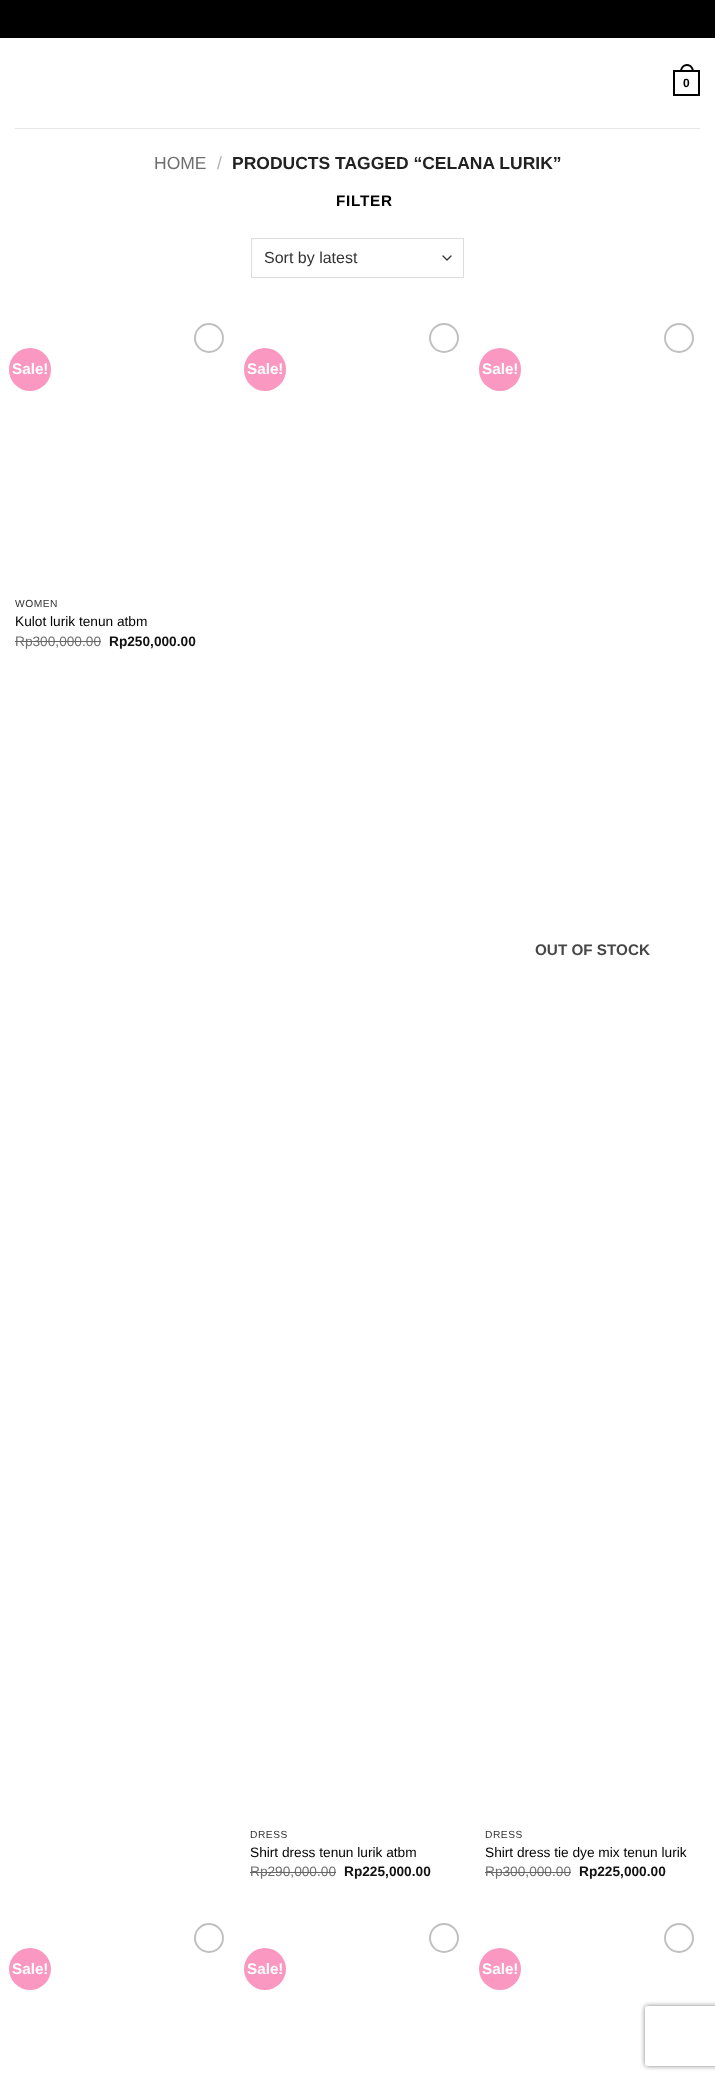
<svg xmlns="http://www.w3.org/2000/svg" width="715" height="2080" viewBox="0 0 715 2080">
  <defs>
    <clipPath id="clip1"><path d="M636 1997H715V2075H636ZM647 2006H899C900 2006 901 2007 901 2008V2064C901 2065 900 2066 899 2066H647C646 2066 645 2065 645 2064V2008C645 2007 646 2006 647 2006Z" clip-rule="evenodd"/></clipPath>
  </defs>
  <rect width="100%" height="100%" fill="rgb(255,255,255)"/>
  <rect x="0" y="0" width="715" height="38" fill="rgb(0,0,0)"/>
  <rect x="674" y="71" width="25" height="24" fill="none" stroke="rgb(0,0,0)" stroke-width="2"/>
  <path d="M687 64C691.5 64 694 68 694 72H680C680 68 682.5 64 687 64ZM687 66C690.5 66 692 69 692 72H682C682 69 683.5 66 687 66Z" fill="rgb(0,0,0)" fill-rule="evenodd"/>
  <text x="683" y="87" font-family="Liberation Sans" font-size="12" font-weight="bold" fill="rgb(0,0,0)">0</text>
  <rect x="15" y="128" width="685" height="1" fill="rgb(230,230,230)"/>
  <text x="154" y="169" font-family="Liberation Sans" font-size="17.5" fill="rgb(110,110,110)">HOME</text>
  <text x="217" y="169" font-family="Liberation Sans" font-size="17.5" fill="rgb(178,178,178)">/</text>
  <text x="232" y="169" font-family="Liberation Sans" font-size="17.5" font-weight="bold" fill="rgb(34,34,34)">PRODUCTS TAGGED “CELANA LURIK”</text>
  <text x="336" y="206" font-family="Liberation Sans" font-size="15.25" font-weight="bold" letter-spacing="0.75" fill="rgb(0,0,0)">FILTER</text>
  <path d="M443 256L447 260L451 256" fill="none" stroke="rgb(51,51,51)" stroke-width="1.3" stroke-linecap="round" stroke-linejoin="round"/>
  <rect x="251.5" y="238.5" width="212" height="39" fill="none" stroke="rgb(221,221,221)"/>
  <text x="264" y="263" font-family="Liberation Sans" font-size="16" fill="rgb(51,51,51)">Sort by latest</text>
  <rect x="9" y="348" width="42" height="43" rx="21" fill="rgb(250,152,194)"/>
  <text x="12" y="374" font-family="Liberation Sans" font-size="15.25" font-weight="bold" fill="rgb(255,255,255)">Sale!</text>
  <circle cx="209" cy="338" r="14" fill="none" stroke="rgb(192,192,192)" stroke-width="2"/>
  <text x="15" y="607" font-family="Liberation Sans" font-size="10.25" letter-spacing="0.5" fill="rgb(51,51,51)">WOMEN</text>
  <text x="15" y="626" font-family="Liberation Sans" font-size="13.7" fill="rgb(0,0,0)">Kulot lurik tenun atbm</text>
  <text x="15" y="646" font-family="Liberation Sans" font-size="13.7" fill="rgb(110,110,110)">Rp300,000.00</text>
  <rect x="15" y="641" width="86" height="1" fill="rgb(102,102,102)"/>
  <text x="109" y="646" font-family="Liberation Sans" font-size="13.7" font-weight="bold" fill="rgb(17,17,17)">Rp250,000.00</text>
  <rect x="244" y="348" width="42" height="43" rx="21" fill="rgb(250,152,194)"/>
  <text x="247" y="374" font-family="Liberation Sans" font-size="15.25" font-weight="bold" fill="rgb(255,255,255)">Sale!</text>
  <circle cx="444" cy="338" r="14" fill="none" stroke="rgb(192,192,192)" stroke-width="2"/>
  <text x="250" y="1838" font-family="Liberation Sans" font-size="10.25" letter-spacing="0.5" fill="rgb(51,51,51)">DRESS</text>
  <text x="250" y="1857" font-family="Liberation Sans" font-size="13.7" fill="rgb(0,0,0)">Shirt dress tenun lurik atbm</text>
  <text x="250" y="1876" font-family="Liberation Sans" font-size="13.7" fill="rgb(110,110,110)">Rp290,000.00</text>
  <rect x="250" y="1872" width="86" height="1" fill="rgb(102,102,102)"/>
  <text x="344" y="1876" font-family="Liberation Sans" font-size="13.7" font-weight="bold" fill="rgb(17,17,17)">Rp225,000.00</text>
  <rect x="479" y="348" width="42" height="43" rx="21" fill="rgb(250,152,194)"/>
  <text x="482" y="374" font-family="Liberation Sans" font-size="15.25" font-weight="bold" fill="rgb(255,255,255)">Sale!</text>
  <circle cx="679" cy="338" r="14" fill="none" stroke="rgb(192,192,192)" stroke-width="2"/>
  <text x="535" y="955" font-family="Liberation Sans" font-size="15.25" font-weight="bold" fill="rgb(71,71,71)">OUT OF STOCK</text>
  <text x="485" y="1838" font-family="Liberation Sans" font-size="10.25" letter-spacing="0.5" fill="rgb(51,51,51)">DRESS</text>
  <text x="485" y="1857" font-family="Liberation Sans" font-size="13.7" fill="rgb(0,0,0)">Shirt dress tie dye mix tenun lurik</text>
  <text x="485" y="1876" font-family="Liberation Sans" font-size="13.7" fill="rgb(110,110,110)">Rp300,000.00</text>
  <rect x="485" y="1872" width="86" height="1" fill="rgb(102,102,102)"/>
  <text x="579" y="1876" font-family="Liberation Sans" font-size="13.7" font-weight="bold" fill="rgb(17,17,17)">Rp225,000.00</text>
  <circle cx="209" cy="1938" r="14" fill="none" stroke="rgb(192,192,192)" stroke-width="2"/>
  <circle cx="30" cy="1969" r="21" fill="rgb(250,152,194)"/>
  <text x="12" y="1974" font-family="Liberation Sans" font-size="15.25" font-weight="bold" fill="rgb(255,255,255)">Sale!</text>
  <circle cx="444" cy="1938" r="14" fill="none" stroke="rgb(192,192,192)" stroke-width="2"/>
  <circle cx="265" cy="1969" r="21" fill="rgb(250,152,194)"/>
  <text x="247" y="1974" font-family="Liberation Sans" font-size="15.25" font-weight="bold" fill="rgb(255,255,255)">Sale!</text>
  <circle cx="679" cy="1938" r="14" fill="none" stroke="rgb(192,192,192)" stroke-width="2"/>
  <circle cx="500" cy="1969" r="21" fill="rgb(250,152,194)"/>
  <text x="482" y="1974" font-family="Liberation Sans" font-size="15.25" font-weight="bold" fill="rgb(255,255,255)">Sale!</text>
  <g clip-path="url(#clip1)">
    <rect x="645" y="2006" width="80" height="60" rx="2" fill="rgb(128,128,128)" filter="blur(2.5px)"/>
  </g>
</svg>
